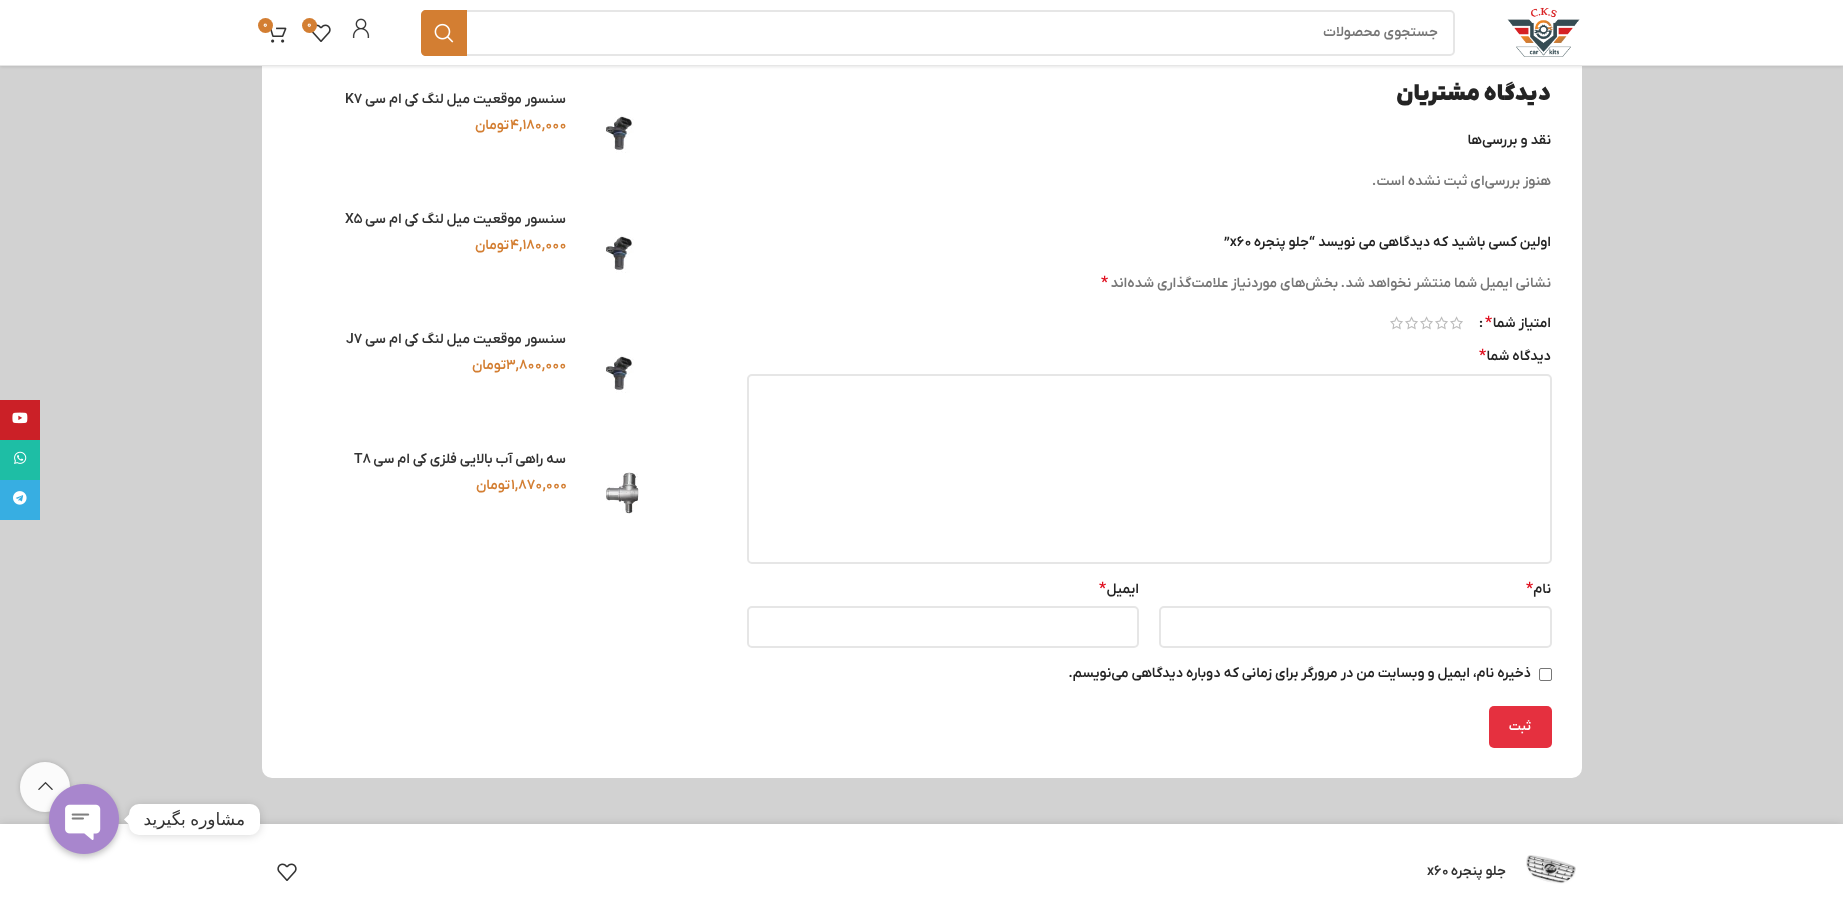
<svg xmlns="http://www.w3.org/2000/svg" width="1843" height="919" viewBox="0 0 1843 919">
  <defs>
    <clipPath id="clip1"><path d="M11 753H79V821H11ZM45 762C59 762 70 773 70 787C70 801 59 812 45 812C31 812 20 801 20 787C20 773 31 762 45 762Z" clip-rule="evenodd"/></clipPath>
  </defs>
  <rect width="100%" height="100%" fill="rgb(210,210,210)"/>
  <rect x="262" y="-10" width="1320" height="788" rx="10" fill="rgb(255,255,255)"/>
  <rect x="0" y="1" width="1843" height="66" fill="rgba(0,0,0,0.1)" filter="blur(1.5px)"/>
  <rect x="0" y="0" width="1843" height="65" fill="rgb(255,255,255)"/>
  <rect x="0" y="65" width="1843" height="1" fill="rgb(230,230,230)"/>
  <image x="1507" y="7" width="73" height="50" href="pic1.png"/>
  <image x="352" y="18" width="18" height="20" href="pic2.png"/>
  <image x="311" y="24" width="20" height="18" href="pic3.png"/>
  <circle cx="309.5" cy="25.5" r="7.5" fill="rgb(211,126,50)"/>
  <text x="307" y="27" font-family="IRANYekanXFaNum" font-size="9" font-weight="600" fill="rgb(255,255,255)">0</text>
  <image x="270" y="27" width="17" height="16" href="pic4.png"/>
  <circle cx="265.5" cy="25.5" r="7.5" fill="rgb(211,126,50)"/>
  <text x="263" y="27" font-family="IRANYekanXFaNum" font-size="9" font-weight="600" fill="rgb(255,255,255)">0</text>
  <rect x="422" y="11" width="1032" height="44" rx="4" fill="none" stroke="rgb(230,230,230)" stroke-width="2"/>
  <text x="1438" y="36" font-family="IRANYekanXFaNum" font-size="14" font-weight="600" direction="rtl" fill="rgb(119,119,119)">جستجوی محصولات</text>
  <path d="M426 10H467V56H426C423 56 421 54 421 51V15C421 12 423 10 426 10Z" fill="rgb(211,126,50)"/>
  <image x="434" y="23" width="20" height="20" href="pic5.png"/>
  <text x="1551" y="100" font-family="IRANYekanXFaNum" font-size="22" font-weight="800" direction="rtl" fill="rgb(36,36,36)">دیدگاه مشتریان</text>
  <text x="1551" y="144" font-family="IRANYekanXFaNum" font-size="14" font-weight="600" direction="rtl" fill="rgb(36,36,36)">نقد و بررسی‌ها</text>
  <text x="1551" y="185" font-family="IRANYekanXFaNum" font-size="14" font-weight="600" direction="rtl" fill="rgb(119,119,119)">هنوز بررسی‌ای ثبت نشده است.</text>
  <text x="1551" y="246" font-family="IRANYekanXFaNum" font-size="14" font-weight="600" direction="rtl" fill="rgb(36,36,36)">اولین کسی باشید که دیدگاهی می نویسد “جلو پنجره</text>
  <text x="1224" y="246" font-family="IRANYekanXFaNum" font-size="14" font-weight="600" fill="rgb(36,36,36)">”x60</text>
  <g font-family="IRANYekanXFaNum" font-size="14" font-weight="600" direction="rtl" fill="rgb(119,119,119)">
    <text x="1551" y="287">نشانی ایمیل شما منتشر نخواهد شد.</text>
    <text x="1338" y="287">بخش‌های موردنیاز علامت‌گذاری شده‌اند</text>
  </g>
  <text x="1101" y="287" font-family="IRANYekanXFaNum" font-size="16" font-weight="600" fill="rgb(224,16,32)">*</text>
  <text x="1551" y="327" font-family="IRANYekanXFaNum" font-size="14" font-weight="600" direction="rtl" fill="rgb(36,36,36)">امتیاز شما</text>
  <text x="1485" y="327" font-family="IRANYekanXFaNum" font-size="16" font-weight="600" fill="rgb(224,16,32)">*</text>
  <text x="1479" y="327" font-family="IRANYekanXFaNum" font-size="14" font-weight="600" fill="rgb(36,36,36)">:</text>
  <image x="1450" y="316" width="13" height="14" href="pic6.png"/>
  <image x="1435" y="316" width="13" height="14" href="pic6.png"/>
  <image x="1420" y="316" width="13" height="14" href="pic6.png"/>
  <image x="1405" y="316" width="13" height="14" href="pic6.png"/>
  <image x="1390" y="316" width="13" height="14" href="pic6.png"/>
  <text x="1551" y="360" font-family="IRANYekanXFaNum" font-size="14" font-weight="600" direction="rtl" fill="rgb(36,36,36)">دیدگاه شما</text>
  <text x="1479" y="360" font-family="IRANYekanXFaNum" font-size="16" font-weight="600" fill="rgb(224,16,32)">*</text>
  <rect x="748" y="375" width="803" height="188" rx="4" fill="none" stroke="rgb(230,230,230)" stroke-width="2"/>
  <text x="1551" y="593" font-family="IRANYekanXFaNum" font-size="14" font-weight="600" direction="rtl" fill="rgb(36,36,36)">نام</text>
  <text x="1526" y="593" font-family="IRANYekanXFaNum" font-size="16" font-weight="600" fill="rgb(224,16,32)">*</text>
  <rect x="1160" y="607" width="391" height="40" rx="4" fill="none" stroke="rgb(230,230,230)" stroke-width="2"/>
  <text x="1139" y="593" font-family="IRANYekanXFaNum" font-size="14" font-weight="600" direction="rtl" fill="rgb(36,36,36)">ایمیل</text>
  <text x="1099" y="593" font-family="IRANYekanXFaNum" font-size="16" font-weight="600" fill="rgb(224,16,32)">*</text>
  <rect x="748" y="607" width="390" height="40" rx="4" fill="none" stroke="rgb(230,230,230)" stroke-width="2"/>
  <rect x="1539.5" y="668.5" width="12" height="12" rx="1.5" fill="none" stroke="rgb(118,118,118)"/>
  <text x="1531" y="677" font-family="IRANYekanXFaNum" font-size="14" font-weight="600" direction="rtl" fill="rgb(36,36,36)">ذخیره نام، ایمیل و وبسایت من در مرورگر برای زمانی که دوباره دیدگاهی می‌نویسم.</text>
  <rect x="1489" y="706" width="63" height="42" rx="5" fill="rgb(229,48,63)"/>
  <text x="1531" y="730" font-family="IRANYekanXFaNum" font-size="13" font-weight="600" direction="rtl" fill="rgb(255,255,255)">ثبت</text>
  <image x="606" y="115" width="28" height="38" href="pic7.png"/>
  <text x="566" y="103" font-family="IRANYekanXFaNum" font-size="14" font-weight="600" direction="rtl" fill="rgb(51,51,51)">سنسور موقعیت میل‌ لنگ کی‌ ام‌ سی</text>
  <text x="345" y="103" font-family="IRANYekanXFaNum" font-size="14" font-weight="600" fill="rgb(51,51,51)">K7</text>
  <text x="510" y="129" font-family="IRANYekanXFaNum" font-size="14" font-weight="600" fill="rgb(211,126,50)">4,180,000</text>
  <text x="509" y="129" font-family="IRANYekanXFaNum" font-size="14" font-weight="600" direction="rtl" fill="rgb(211,126,50)">تومان</text>
  <image x="606" y="235" width="28" height="38" href="pic7.png"/>
  <text x="566" y="223" font-family="IRANYekanXFaNum" font-size="14" font-weight="600" direction="rtl" fill="rgb(51,51,51)">سنسور موقعیت میل‌ لنگ کی‌ ام‌ سی</text>
  <text x="345" y="223" font-family="IRANYekanXFaNum" font-size="14" font-weight="600" fill="rgb(51,51,51)">X5</text>
  <text x="510" y="249" font-family="IRANYekanXFaNum" font-size="14" font-weight="600" fill="rgb(211,126,50)">4,180,000</text>
  <text x="509" y="249" font-family="IRANYekanXFaNum" font-size="14" font-weight="600" direction="rtl" fill="rgb(211,126,50)">تومان</text>
  <image x="606" y="355" width="28" height="38" href="pic7.png"/>
  <text x="566" y="343" font-family="IRANYekanXFaNum" font-size="14" font-weight="600" direction="rtl" fill="rgb(51,51,51)">سنسور موقعیت میل‌ لنگ کی‌ ام‌ سی</text>
  <text x="346" y="343" font-family="IRANYekanXFaNum" font-size="14" font-weight="600" fill="rgb(51,51,51)">J7</text>
  <text x="506" y="369" font-family="IRANYekanXFaNum" font-size="14" font-weight="600" fill="rgb(211,126,50)">3,800,000</text>
  <text x="506" y="369" font-family="IRANYekanXFaNum" font-size="14" font-weight="600" direction="rtl" fill="rgb(211,126,50)">تومان</text>
  <image x="606" y="472" width="33" height="42" href="pic8.png"/>
  <text x="566" y="463" font-family="IRANYekanXFaNum" font-size="14" font-weight="600" direction="rtl" fill="rgb(51,51,51)">سه‌ راهی آب بالایی فلزی کی‌ ام‌ سی</text>
  <text x="354" y="463" font-family="IRANYekanXFaNum" font-size="14" font-weight="600" fill="rgb(51,51,51)">T8</text>
  <text x="511" y="489" font-family="IRANYekanXFaNum" font-size="14" font-weight="600" fill="rgb(211,126,50)">1,870,000</text>
  <text x="510" y="489" font-family="IRANYekanXFaNum" font-size="14" font-weight="600" direction="rtl" fill="rgb(211,126,50)">تومان</text>
  <rect x="0" y="400" width="40" height="40" fill="rgb(203,32,39)"/>
  <image x="12" y="412" width="16" height="12" href="pic9.png"/>
  <rect x="0" y="440" width="40" height="40" fill="rgb(30,190,165)"/>
  <image x="14" y="451" width="13" height="13" href="pic10.png"/>
  <rect x="0" y="480" width="40" height="40" fill="rgb(55,174,226)"/>
  <image x="13" y="491" width="14" height="14" href="pic11.png"/>
  <rect x="0" y="824" width="1843" height="95" fill="rgba(0,0,0,0.12)" filter="blur(4.5px)"/>
  <rect x="0" y="824" width="1843" height="95" fill="rgb(255,255,255)"/>
  <rect x="129" y="805" width="131" height="31" rx="10" fill="rgba(0,0,0,0.15)" filter="blur(4px)"/>
  <rect x="129" y="804" width="131" height="31" rx="10" fill="rgb(255,255,255)"/>
  <text x="245" y="825" word-spacing="-1" font-family="DejaVu Sans" font-size="17" direction="rtl" fill="rgb(51,51,51)">مشاوره بگیرید</text>
  <path d="M129 814.5V824.5L124 819.5Z" fill="rgb(255,255,255)"/>
  <g clip-path="url(#clip1)">
    <rect x="20" y="762" width="50" height="50" rx="25" fill="rgba(0,0,0,0.17)" filter="blur(2.5px)"/>
  </g>
  <circle cx="45" cy="787" r="25" fill="rgba(255,255,255,0.9)"/>
  <image x="38" y="781" width="15" height="9" href="pic13.png"/>
  <rect x="49" y="787" width="70" height="70" rx="35" fill="rgba(0,0,0,0.25)" filter="blur(3px)"/>
  <image x="49" y="784" width="70" height="70" href="pic12.png"/>
  <image x="1526" y="855" width="50" height="29" href="pic14.png"/>
  <text x="1506" y="875" font-family="IRANYekanXFaNum" font-size="14" font-weight="600" direction="rtl" fill="rgb(51,51,51)">جلو پنجره</text>
  <text x="1427" y="875" font-family="IRANYekanXFaNum" font-size="14" font-weight="600" fill="rgb(51,51,51)">x60</text>
  <image x="277" y="863" width="20" height="18" href="pic3.png"/>
</svg>
